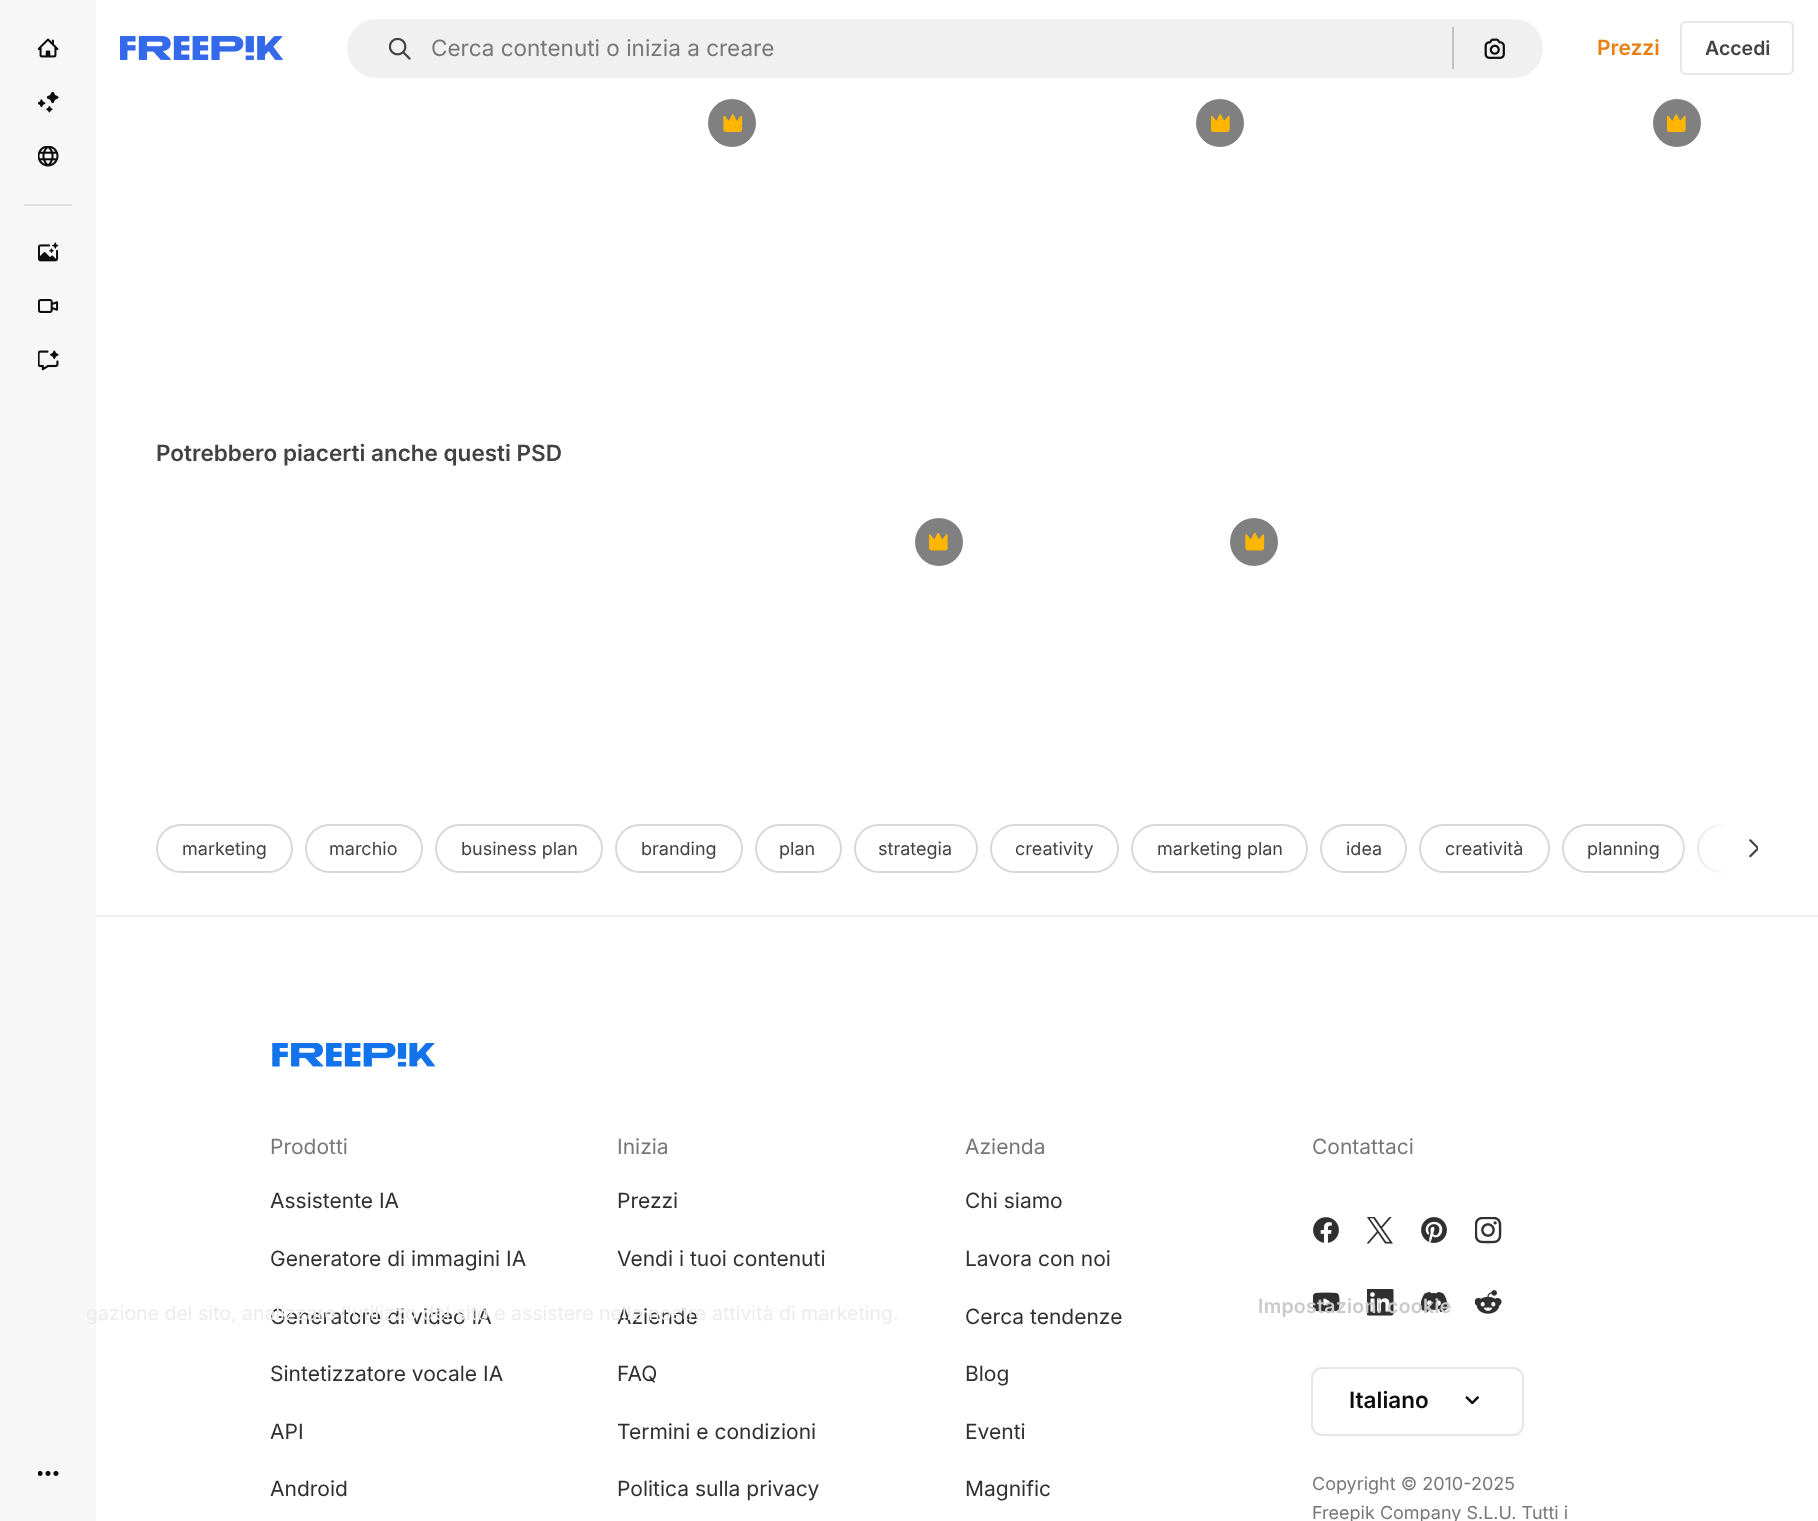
<svg xmlns="http://www.w3.org/2000/svg" width="1818" height="1521" viewBox="0 0 1818 1521">
  <defs>
    <clipPath id="clip1"><rect x="156" y="824" width="1602" height="49"/></clipPath>
    <linearGradient id="g1" gradientUnits="userSpaceOnUse" x1="1728" y1="848" x2="1676" y2="848"><stop offset="0" stop-color="rgb(255,255,255)"/><stop offset="1" stop-color="rgb(255,255,255)" stop-opacity="0"/></linearGradient>
  </defs>
  <rect width="100%" height="100%" fill="rgb(255,255,255)"/>
  <rect x="0" y="0" width="96" height="1521" fill="rgb(247,247,247)"/>
  <image x="38" y="38" width="21" height="20" href="pic1.png"/>
  <image x="38" y="92" width="21" height="21" href="pic2.png"/>
  <image x="38" y="146" width="21" height="21" href="pic3.png"/>
  <rect x="24" y="204" width="48" height="2" fill="rgb(224,224,224)"/>
  <image x="38" y="242" width="21" height="20" href="pic4.png"/>
  <image x="38" y="299" width="21" height="14" href="pic5.png"/>
  <image x="38" y="350" width="21" height="21" href="pic6.png"/>
  <image x="38" y="1470" width="21" height="6" href="pic7.png"/>
  <image x="120" y="36" width="163" height="24" href="pic8.png"/>
  <rect x="346" y="18" width="1198" height="61" rx="30.5" fill="rgb(240,240,240)" stroke="rgb(255,255,255)" stroke-width="2"/>
  <image x="389" y="38" width="22" height="22" href="pic9.png"/>
  <text x="431" y="56" font-family="Inter" font-size="22.5" fill="rgb(119,119,119)">Cerca contenuti o inizia a creare</text>
  <rect x="1452" y="27" width="2" height="42" fill="rgb(195,195,195)"/>
  <image x="1484" y="38" width="21" height="21" href="pic10.png"/>
  <text x="1597" y="55" font-family="Inter" font-size="21" font-weight="600" fill="rgb(234,126,17)">Prezzi</text>
  <rect x="1681" y="22" width="112" height="52" rx="5" fill="none" stroke="rgb(231,231,231)" stroke-width="2"/>
  <text x="1705" y="55" font-family="Inter" font-size="19.5" font-weight="600" fill="rgb(66,66,66)">Accedi</text>
  <circle cx="732" cy="123" r="24" fill="rgb(128,128,128)"/>
  <image x="723" y="114" width="20" height="18" href="pic11.png"/>
  <circle cx="1220" cy="123" r="24" fill="rgb(128,128,128)"/>
  <image x="1211" y="114" width="19" height="18" href="pic12.png"/>
  <circle cx="1677" cy="123" r="24" fill="rgb(128,128,128)"/>
  <image x="1667" y="114" width="19" height="18" href="pic12.png"/>
  <text x="156" y="461" font-family="Inter" font-size="22.5" font-weight="600" fill="rgb(66,66,66)">Potrebbero piacerti anche questi PSD</text>
  <circle cx="939" cy="542" r="24" fill="rgb(128,128,128)"/>
  <image x="929" y="533" width="19" height="18" href="pic13.png"/>
  <circle cx="1254" cy="542" r="24" fill="rgb(128,128,128)"/>
  <image x="1245" y="533" width="20" height="18" href="pic14.png"/>
  <rect x="157" y="825" width="135" height="47" rx="23.5" fill="none" stroke="rgb(216,216,216)" stroke-width="2"/>
  <text x="182" y="855" font-family="Inter" font-size="18" fill="rgb(66,66,66)">marketing</text>
  <rect x="306" y="825" width="116" height="47" rx="23.5" fill="none" stroke="rgb(216,216,216)" stroke-width="2"/>
  <text x="329" y="855" font-family="Inter" font-size="18" fill="rgb(66,66,66)">marchio</text>
  <rect x="436" y="825" width="166" height="47" rx="23.5" fill="none" stroke="rgb(216,216,216)" stroke-width="2"/>
  <text x="461" y="855" font-family="Inter" font-size="18" fill="rgb(66,66,66)">business plan</text>
  <rect x="616" y="825" width="126" height="47" rx="23.5" fill="none" stroke="rgb(216,216,216)" stroke-width="2"/>
  <text x="641" y="855" font-family="Inter" font-size="18" fill="rgb(66,66,66)">branding</text>
  <rect x="756" y="825" width="85" height="47" rx="23.5" fill="none" stroke="rgb(216,216,216)" stroke-width="2"/>
  <text x="779" y="855" font-family="Inter" font-size="18" fill="rgb(66,66,66)">plan</text>
  <rect x="855" y="825" width="122" height="47" rx="23.5" fill="none" stroke="rgb(216,216,216)" stroke-width="2"/>
  <text x="878" y="855" font-family="Inter" font-size="18" fill="rgb(66,66,66)">strategia</text>
  <rect x="991" y="825" width="127" height="47" rx="23.5" fill="none" stroke="rgb(216,216,216)" stroke-width="2"/>
  <text x="1015" y="855" font-family="Inter" font-size="18" fill="rgb(66,66,66)">creativity</text>
  <rect x="1132" y="825" width="175" height="47" rx="23.5" fill="none" stroke="rgb(216,216,216)" stroke-width="2"/>
  <text x="1157" y="855" font-family="Inter" font-size="18" fill="rgb(66,66,66)">marketing plan</text>
  <rect x="1321" y="825" width="85" height="47" rx="23.5" fill="none" stroke="rgb(216,216,216)" stroke-width="2"/>
  <text x="1346" y="855" font-family="Inter" font-size="18" fill="rgb(66,66,66)">idea</text>
  <rect x="1420" y="825" width="129" height="47" rx="23.5" fill="none" stroke="rgb(216,216,216)" stroke-width="2"/>
  <text x="1445" y="855" font-family="Inter" font-size="18" fill="rgb(66,66,66)">creatività</text>
  <rect x="1563" y="825" width="121" height="47" rx="23.5" fill="none" stroke="rgb(216,216,216)" stroke-width="2"/>
  <text x="1587" y="855" font-family="Inter" font-size="18" fill="rgb(66,66,66)">planning</text>
  <g clip-path="url(#clip1)">
    <rect x="1698" y="825" width="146" height="47" rx="23.5" fill="none" stroke="rgb(216,216,216)" stroke-width="2"/>
  </g>
  <rect x="1728" y="824" width="30" height="49" fill="rgb(255,255,255)"/>
  <rect x="1679" y="824" width="49" height="49" fill="url(#g1)"/>
  <image x="1749" y="839" width="9" height="19" href="pic15.png"/>
  <rect x="96" y="915" width="1722" height="2" fill="rgb(240,240,240)"/>
  <image x="272" y="1043" width="163" height="24" href="pic16.png"/>
  <text x="270" y="1154" font-family="Inter" font-size="21" fill="rgb(119,119,119)">Prodotti</text>
  <g font-family="Inter" font-size="21" fill="rgb(48,48,48)">
    <text x="270" y="1208">Assistente IA</text>
    <text x="270" y="1266">Generatore di immagini IA</text>
    <text x="270" y="1324">Generatore di video IA</text>
    <text x="270" y="1381">Sintetizzatore vocale IA</text>
    <text x="270" y="1439">API</text>
    <text x="270" y="1496">Android</text>
  </g>
  <text x="617" y="1154" font-family="Inter" font-size="21" fill="rgb(119,119,119)">Inizia</text>
  <g font-family="Inter" font-size="21" fill="rgb(48,48,48)">
    <text x="617" y="1208">Prezzi</text>
    <text x="617" y="1266">Vendi i tuoi contenuti</text>
    <text x="617" y="1324">Aziende</text>
    <text x="617" y="1381">FAQ</text>
    <text x="617" y="1439">Termini e condizioni</text>
    <text x="617" y="1496">Politica sulla privacy</text>
  </g>
  <text x="965" y="1154" font-family="Inter" font-size="21" fill="rgb(119,119,119)">Azienda</text>
  <g font-family="Inter" font-size="21" fill="rgb(48,48,48)">
    <text x="965" y="1208">Chi siamo</text>
    <text x="965" y="1266">Lavora con noi</text>
    <text x="965" y="1324">Cerca tendenze</text>
    <text x="965" y="1381">Blog</text>
    <text x="965" y="1439">Eventi</text>
    <text x="965" y="1496">Magnific</text>
  </g>
  <text x="1312" y="1154" font-family="Inter" font-size="21" fill="rgb(119,119,119)">Contattaci</text>
  <image x="1313" y="1217" width="26" height="26" href="pic17.png"/>
  <image x="1367" y="1217" width="26" height="27" href="pic18.png"/>
  <image x="1421" y="1217" width="26" height="26" href="pic19.png"/>
  <image x="1475" y="1217" width="27" height="27" href="pic20.png"/>
  <image x="1313" y="1292" width="27" height="20" href="pic21.png"/>
  <image x="1367" y="1289" width="27" height="27" href="pic22.png"/>
  <image x="1421" y="1291" width="27" height="22" href="pic23.png"/>
  <image x="1475" y="1290" width="27" height="24" href="pic24.png"/>
  <rect x="1312" y="1368" width="211" height="67" rx="10" fill="none" stroke="rgb(230,230,230)" stroke-width="2"/>
  <text x="1349" y="1408" font-family="Inter" font-size="22.5" font-weight="600" fill="rgb(13,13,13)">Italiano</text>
  <image x="1465" y="1396" width="14" height="9" href="pic25.png"/>
  <g font-family="Inter" font-size="18" fill="rgb(119,119,119)">
    <text x="1312" y="1490">Copyright © 2010-</text>
    <text x="1471" y="1490">2025</text>
    <text x="1312" y="1519">Freepik Company S.L.U. Tutti i</text>
  </g>
  <text x="86" y="1320" font-family="Inter" font-size="19.5" fill="rgb(236,236,236)">gazione del sito, analizzare l'utilizzo del sito e assistere nelle nostre attività di marketing.</text>
  <text x="1258" y="1313" font-family="Inter" font-size="19.5" font-weight="600" letter-spacing="0.25" fill="rgb(202,202,202)">Impostazioni cookie</text>
</svg>
